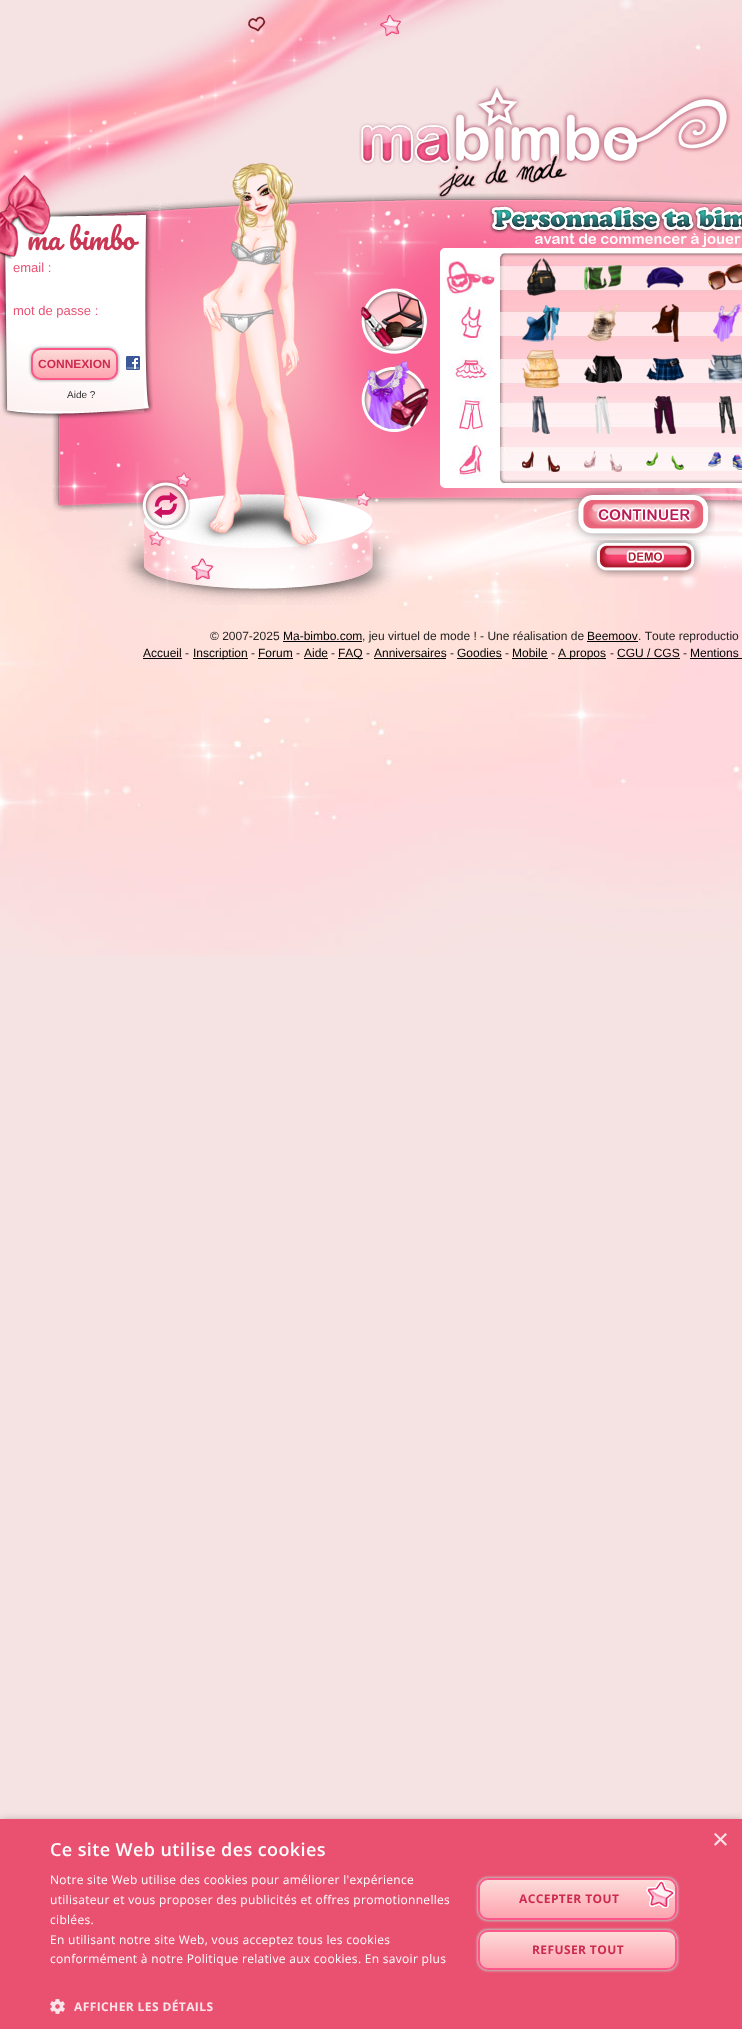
<svg xmlns="http://www.w3.org/2000/svg" width="742" height="2029" viewBox="0 0 742 2029">
  <style>*{font-kerning:none!important;font-variant-ligatures:none!important}</style>
  <defs>
    <clipPath id="clip1"><rect x="31" y="348" width="87" height="32" rx="10"/></clipPath>
    <linearGradient id="g1" gradientUnits="userSpaceOnUse" x1="75" y1="350" x2="75" y2="378"><stop offset="0" stop-color="rgb(253,219,216)"/><stop offset="1" stop-color="rgb(254,164,176)"/></linearGradient>
    <clipPath id="clip2"><rect x="478" y="1930" width="199" height="40" rx="10"/></clipPath>
    <linearGradient id="g2" gradientUnits="userSpaceOnUse" x1="578" y1="1932" x2="578" y2="1968"><stop offset="0" stop-color="rgb(253,219,216)"/><stop offset="1" stop-color="rgb(254,164,176)"/></linearGradient>
  </defs>
  <rect width="100%" height="100%" fill="rgb(245,227,227)"/>
  <image x="0" y="0" width="742" height="956" href="pic1.png"/>
  <image x="0" y="0" width="504" height="429" href="pic2.png"/>
  <image x="359" y="85" width="372" height="114" href="pic3.png"/>
  <image x="52" y="193" width="690" height="319" href="pic18.png"/>
  <image x="105" y="458" width="297" height="147" href="pic4.png"/>
  <image x="301" y="488" width="441" height="103" href="pic52.png"/>
  <image x="201" y="170" width="116" height="376" href="pic7.png"/>
  <image x="242" y="188" width="29" height="14" href="pic11.png"/>
  <image x="252" y="195" width="14" height="22" href="pic14.png"/>
  <image x="255" y="201" width="7" height="6" href="pic15.png"/>
  <image x="244" y="192" width="31" height="17" href="pic13.png"/>
  <image x="243" y="183" width="26" height="12" href="pic8.png"/>
  <image x="240" y="185" width="34" height="17" href="pic9.png"/>
  <image x="246" y="191" width="22" height="9" href="pic12.png"/>
  <image x="239" y="186" width="35" height="15" href="pic10.png"/>
  <image x="254" y="204" width="14" height="8" href="pic16.png"/>
  <image x="213" y="241" width="68" height="93" href="pic17.png"/>
  <image x="230" y="162" width="65" height="99" href="pic5.png"/>
  <image x="236" y="169" width="57" height="67" href="pic6.png"/>
  <image x="140" y="480" width="50" height="50" href="pic19.png"/>
  <image x="489" y="205" width="253" height="42" href="pic20.png"/>
  <image x="360" y="288" width="67" height="66" href="pic21.png"/>
  <image x="361" y="361" width="68" height="71" href="pic22.png"/>
  <rect x="440" y="248" width="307" height="240" rx="5" fill="rgb(255,255,255)"/>
  <image x="500" y="253" width="242" height="230" href="pic23.png"/>
  <image x="445" y="261" width="50" height="36" href="pic24.png"/>
  <image x="455" y="300" width="28" height="41" href="pic25.png"/>
  <image x="451" y="357" width="40" height="24" href="pic26.png"/>
  <image x="459" y="397" width="24" height="40" href="pic27.png"/>
  <image x="459" y="445" width="24" height="32" href="pic28.png"/>
  <image x="523" y="274" width="219" height="201" href="pic29.png"/>
  <image x="527" y="258" width="29" height="38" href="pic30.png"/>
  <image x="584" y="265" width="38" height="25" href="pic31.png"/>
  <image x="646" y="267" width="38" height="21" href="pic32.png"/>
  <image x="708" y="264" width="34" height="26" href="pic33.png"/>
  <image x="522" y="305" width="38" height="37" href="pic34.png"/>
  <image x="587" y="304" width="32" height="38" href="pic35.png"/>
  <image x="652" y="304" width="27" height="38" href="pic36.png"/>
  <image x="713" y="304" width="28" height="38" href="pic37.png"/>
  <image x="522" y="350" width="38" height="38" href="pic38.png"/>
  <image x="584" y="355" width="38" height="28" href="pic39.png"/>
  <image x="646" y="358" width="38" height="23" href="pic40.png"/>
  <image x="708" y="354" width="34" height="30" href="pic41.png"/>
  <image x="532" y="396" width="18" height="38" href="pic42.png"/>
  <image x="595" y="396" width="17" height="38" href="pic43.png"/>
  <image x="654" y="396" width="22" height="38" href="pic44.png"/>
  <image x="719" y="396" width="17" height="38" href="pic45.png"/>
  <image x="522" y="451" width="38" height="21" href="pic46.png"/>
  <image x="584" y="451" width="38" height="21" href="pic47.png"/>
  <image x="646" y="452" width="38" height="18" href="pic48.png"/>
  <image x="708" y="452" width="34" height="18" href="pic49.png"/>
  <image x="571" y="488" width="144" height="55" href="pic50.png"/>
  <image x="590" y="540" width="111" height="38" href="pic51.png"/>
  <image x="0" y="174" width="153" height="245" href="pic53.png"/>
  <text x="27" y="250" font-family="Pacifico" font-size="28" fill="rgb(202,55,84)">ma bimbo</text>
  <g font-family="Liberation Sans" font-size="13" fill="rgb(231,83,116)">
    <text x="13" y="272">email :</text>
    <text x="13" y="315">mot de passe :</text>
  </g>
  <rect x="10" y="318" width="130" height="25" rx="5" fill="rgb(255,255,255)"/>
  <rect x="30" y="347" width="89" height="34" rx="11" fill="rgb(191,191,191)" filter="blur(1px)"/>
  <g clip-path="url(#clip1)">
    <rect x="31" y="350" width="87" height="28" fill="url(#g1)"/>
  </g>
  <rect x="32" y="349" width="85" height="30" rx="9" fill="none" stroke="rgb(252,87,136)" stroke-width="2"/>
  <text x="38" y="368" font-family="Liberation Sans" font-size="12" font-weight="bold" fill="rgb(205,43,78)">CONNEXION</text>
  <image x="126" y="356" width="14" height="14" href="pic54.png"/>
  <text x="67" y="398" font-family="Liberation Sans" font-size="10" fill="rgb(51,51,51)">Aide ?</text>
  <text x="210" y="640" font-family="Liberation Sans" font-size="12" fill="rgb(34,34,34)">© 2007-2025</text>
  <text x="283" y="640" font-family="Liberation Sans" font-size="12" fill="rgb(0,0,0)">Ma-bimbo.com</text>
  <rect x="283" y="641" width="79" height="1" fill="rgb(0,0,0)"/>
  <text x="362" y="640" font-family="Liberation Sans" font-size="12" fill="rgb(34,34,34)">, jeu virtuel de mode ! - Une réalisation de</text>
  <text x="587" y="640" font-family="Liberation Sans" font-size="12" fill="rgb(0,0,0)">Beemoov</text>
  <rect x="587" y="641" width="51" height="1" fill="rgb(0,0,0)"/>
  <text x="638" y="640" font-family="Liberation Sans" font-size="12" fill="rgb(34,34,34)">. Toute reproductio</text>
  <text x="143" y="657" font-family="Liberation Sans" font-size="12" fill="rgb(0,0,0)">Accueil</text>
  <rect x="143" y="658" width="39" height="1" fill="rgb(0,0,0)"/>
  <text x="185" y="657" font-family="Liberation Sans" font-size="12" fill="rgb(34,34,34)">-</text>
  <rect x="193" y="658" width="55" height="1" fill="rgb(0,0,0)"/>
  <text x="193" y="657" font-family="Liberation Sans" font-size="12" fill="rgb(0,0,0)">Inscription</text>
  <text x="251" y="657" font-family="Liberation Sans" font-size="12" fill="rgb(34,34,34)">-</text>
  <text x="258" y="657" font-family="Liberation Sans" font-size="12" fill="rgb(0,0,0)">Forum</text>
  <rect x="258" y="658" width="35" height="1" fill="rgb(0,0,0)"/>
  <text x="296" y="657" font-family="Liberation Sans" font-size="12" fill="rgb(34,34,34)">-</text>
  <text x="304" y="657" font-family="Liberation Sans" font-size="12" fill="rgb(0,0,0)">Aide</text>
  <rect x="304" y="658" width="24" height="1" fill="rgb(0,0,0)"/>
  <text x="331" y="657" font-family="Liberation Sans" font-size="12" fill="rgb(34,34,34)">-</text>
  <rect x="338" y="658" width="25" height="1" fill="rgb(0,0,0)"/>
  <text x="338" y="657" font-family="Liberation Sans" font-size="12" fill="rgb(0,0,0)">FAQ</text>
  <text x="366" y="657" font-family="Liberation Sans" font-size="12" fill="rgb(34,34,34)">-</text>
  <text x="374" y="657" font-family="Liberation Sans" font-size="12" fill="rgb(0,0,0)">Anniversaires</text>
  <rect x="374" y="658" width="72" height="1" fill="rgb(0,0,0)"/>
  <text x="450" y="657" font-family="Liberation Sans" font-size="12" fill="rgb(34,34,34)">-</text>
  <text x="457" y="657" font-family="Liberation Sans" font-size="12" fill="rgb(0,0,0)">Goodies</text>
  <rect x="457" y="658" width="45" height="1" fill="rgb(0,0,0)"/>
  <text x="505" y="657" font-family="Liberation Sans" font-size="12" fill="rgb(34,34,34)">-</text>
  <text x="512" y="657" font-family="Liberation Sans" font-size="12" fill="rgb(0,0,0)">Mobile</text>
  <rect x="512" y="658" width="36" height="1" fill="rgb(0,0,0)"/>
  <text x="551" y="657" font-family="Liberation Sans" font-size="12" fill="rgb(34,34,34)">-</text>
  <rect x="558" y="658" width="48" height="1" fill="rgb(0,0,0)"/>
  <text x="558" y="657" font-family="Liberation Sans" font-size="12" fill="rgb(0,0,0)">A propos</text>
  <text x="610" y="657" font-family="Liberation Sans" font-size="12" fill="rgb(34,34,34)">-</text>
  <text x="617" y="657" font-family="Liberation Sans" font-size="12" fill="rgb(0,0,0)">CGU / CGS</text>
  <rect x="617" y="658" width="63" height="1" fill="rgb(0,0,0)"/>
  <text x="683" y="657" font-family="Liberation Sans" font-size="12" fill="rgb(34,34,34)">-</text>
  <text x="690" y="657" font-family="Liberation Sans" font-size="12" fill="rgb(0,0,0)">Mentions</text>
  <rect x="690" y="658" width="52" height="1" fill="rgb(0,0,0)"/>
  <rect x="1" y="1821" width="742" height="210" fill="rgba(0,0,0,0.35)" filter="blur(4px)"/>
  <rect x="0" y="1819" width="742" height="210" fill="rgb(234,81,112)"/>
  <text x="712" y="1849" font-family="Liberation Sans" font-size="29" fill="rgb(252,229,234)">×</text>
  <text x="50" y="1856" font-family="Open Sans" font-size="18" font-weight="600" letter-spacing="0.4" fill="rgb(255,255,255)">Ce site Web utilise des cookies</text>
  <g font-family="Open Sans" font-size="12" letter-spacing="0.3" fill="rgb(255,255,255)">
    <text>
      <tspan x="50" y="1884">Notre site Web utilise des cookies pour améliorer l'expérience</tspan>
      <tspan x="50" y="1904">utilisateur et vous proposer des publicités et offres promotionnelles</tspan>
      <tspan x="50" y="1924">ciblées.</tspan>
      <tspan x="50" y="1944">En utilisant notre site Web, vous acceptez tous les cookies</tspan>
      <tspan x="50" y="1963">conformément à notre Politique relative aux cookies. En savoir plus</tspan>
    </text>
  </g>
  <image x="50" y="1999" width="15" height="15" href="pic55.png"/>
  <text x="74" y="2011" font-family="Open Sans" font-size="12" font-weight="bold" letter-spacing="0.4" fill="rgb(252,229,234)">AFFICHER LES DÉTAILS</text>
  <rect x="477" y="1877" width="201" height="44" rx="11" fill="rgb(191,191,191)" filter="blur(1px)"/>
  <image x="480" y="1880" width="195" height="38" href="pic56.png"/>
  <rect x="479" y="1879" width="197" height="40" rx="9" fill="none" stroke="rgb(252,87,136)" stroke-width="2"/>
  <text x="519" y="1903" font-family="Open Sans" font-size="12" font-weight="bold" letter-spacing="0.4" fill="rgb(205,43,78)">ACCEPTER TOUT</text>
  <rect x="477" y="1929" width="201" height="42" rx="11" fill="rgb(191,191,191)" filter="blur(1px)"/>
  <g clip-path="url(#clip2)">
    <rect x="478" y="1932" width="199" height="36" fill="url(#g2)"/>
  </g>
  <rect x="479" y="1931" width="197" height="38" rx="9" fill="none" stroke="rgb(252,87,136)" stroke-width="2"/>
  <text x="532" y="1954" font-family="Open Sans" font-size="12" font-weight="bold" letter-spacing="0.4" fill="rgb(205,43,78)">REFUSER TOUT</text>
</svg>
